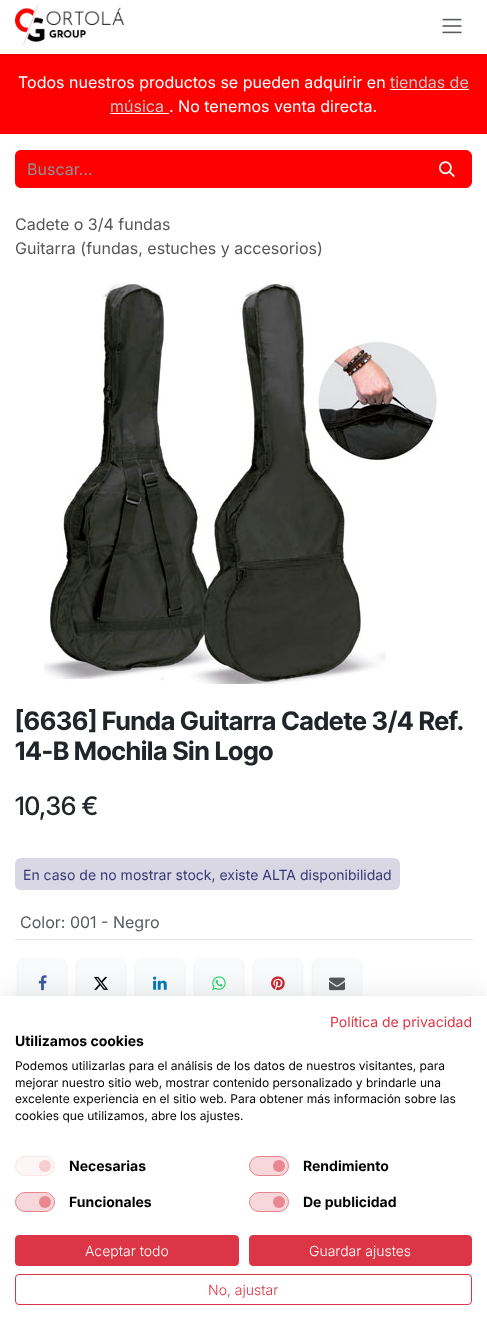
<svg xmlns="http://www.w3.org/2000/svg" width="487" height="1332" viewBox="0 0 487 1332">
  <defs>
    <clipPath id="clip1"><rect x="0" y="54" width="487" height="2"/></clipPath>
  </defs>
  <rect width="100%" height="100%" fill="rgb(255,255,255)"/>
  <rect x="0" y="54" width="487" height="80" fill="rgb(255,0,0)"/>
  <g clip-path="url(#clip1)">
    <rect x="0" y="-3" width="487" height="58" fill="rgba(0,0,0,0.1)" filter="blur(1.5px)"/>
  </g>
  <image x="15" y="5" width="109" height="40" href="pic1.png"/>
  <image x="442" y="18" width="20" height="16" href="pic2.png"/>
  <text x="18" y="88" font-family="Inter" font-size="16" fill="rgb(255,255,255)">Todos nuestros productos se pueden adquirir en</text>
  <text x="390" y="88" font-family="Inter" font-size="16" fill="rgb(199,198,200)">tiendas de</text>
  <rect x="390" y="89" width="79" height="1" fill="rgb(255,255,255)"/>
  <text x="110" y="112" font-family="Inter" font-size="16" fill="rgb(199,198,200)">música</text>
  <rect x="110" y="113" width="59" height="1" fill="rgb(255,255,255)"/>
  <text x="169" y="112" font-family="Inter" font-size="16" fill="rgb(255,255,255)">. No tenemos venta directa.</text>
  <path d="M21 150H423V188H21C17.5 188 15 185.5 15 182V156C15 152.5 17.5 150 21 150Z" fill="rgb(255,0,0)"/>
  <text x="27" y="175" font-family="Inter" font-size="16" fill="rgb(144,146,148)">Buscar…</text>
  <path d="M422.5 150.5H466C469 150.5 471.5 153 471.5 156V182C471.5 185 469 187.5 466 187.5H422.5Z" fill="rgb(255,0,0)" stroke="rgb(255,0,0)"/>
  <image x="439" y="161" width="16" height="17" href="pic3.png"/>
  <g font-family="Inter" font-size="16" fill="rgb(86,85,89)">
    <text>
      <tspan x="15" y="230">Cadete o 3/4 fundas</tspan>
      <tspan x="15" y="254">Guitarra (fundas, estuches y accesorios)</tspan>
    </text>
  </g>
  <image x="44" y="284" width="393" height="400" href="pic4.png"/>
  <g font-family="Inter Tight" font-size="25.6" font-weight="bold" fill="rgb(33,37,41)">
    <text>
      <tspan x="15" y="730">[6636] Funda Guitarra Cadete 3/4 Ref.</tspan>
      <tspan x="15" y="760">14-B Mochila Sin Logo</tspan>
    </text>
  </g>
  <text x="15" y="815" font-family="Inter Tight" font-size="25.6" font-weight="500" fill="rgb(33,37,41)">10,36 €</text>
  <text x="23" y="880" font-family="Inter" font-size="14" fill="rgb(58,57,116)">En caso de no mostrar stock, existe ALTA disponibilidad</text>
  <rect x="15" y="858" width="385" height="32" rx="6" fill="rgba(58,57,116,0.2)"/>
  <rect x="15" y="939" width="458" height="1" fill="rgb(230,231,231)"/>
  <text x="20" y="928" font-family="Inter" font-size="16" fill="rgb(89,92,95)">Color: 001 - Negro</text>
  <rect x="18" y="960" width="48" height="48" rx="6" fill="rgba(0,0,0,0.1)" filter="blur(1.5px)"/>
  <rect x="18" y="959" width="48" height="48" rx="6" fill="rgb(248,249,250)"/>
  <image x="38" y="975" width="9" height="16" href="pic5.png"/>
  <rect x="77" y="960" width="48" height="48" rx="6" fill="rgba(0,0,0,0.1)" filter="blur(1.5px)"/>
  <rect x="77" y="959" width="48" height="48" rx="6" fill="rgb(248,249,250)"/>
  <image x="94" y="976" width="14" height="14" href="pic6.png"/>
  <rect x="136" y="960" width="48" height="48" rx="6" fill="rgba(0,0,0,0.1)" filter="blur(1.5px)"/>
  <rect x="136" y="959" width="48" height="48" rx="6" fill="rgb(248,249,250)"/>
  <image x="153" y="976" width="14" height="14" href="pic7.png"/>
  <rect x="195" y="960" width="48" height="48" rx="6" fill="rgba(0,0,0,0.1)" filter="blur(1.5px)"/>
  <rect x="195" y="959" width="48" height="48" rx="6" fill="rgb(248,249,250)"/>
  <image x="212" y="976" width="14" height="15" href="pic8.png"/>
  <rect x="254" y="960" width="48" height="48" rx="6" fill="rgba(0,0,0,0.1)" filter="blur(1.5px)"/>
  <rect x="254" y="959" width="48" height="48" rx="6" fill="rgb(248,249,250)"/>
  <image x="271" y="976" width="14" height="15" href="pic9.png"/>
  <rect x="313" y="960" width="48" height="48" rx="6" fill="rgba(0,0,0,0.1)" filter="blur(1.5px)"/>
  <rect x="313" y="959" width="48" height="48" rx="6" fill="rgb(248,249,250)"/>
  <image x="329" y="977" width="16" height="14" href="pic10.png"/>
  <rect x="0" y="996" width="487" height="336" fill="rgba(0,0,0,0.1)" filter="blur(12px)"/>
  <rect x="0" y="996" width="487" height="336" fill="rgb(255,255,255)"/>
  <text x="330" y="1027" font-family="Inter" font-size="14" fill="rgb(220,53,69)">Política de privacidad</text>
  <text x="15" y="1046" font-family="Inter" font-size="14" font-weight="bold" fill="rgb(0,0,0)">Utilizamos cookies</text>
  <g font-family="Inter" font-size="12" fill="rgb(0,0,0)">
    <text>
      <tspan x="15" y="1070">Podemos utilizarlas para el análisis de los datos de nuestros visitantes, para</tspan>
      <tspan x="15" y="1087">mejorar nuestro sitio web, mostrar contenido personalizado y brindarle una</tspan>
      <tspan x="15" y="1103">excelente experiencia en el sitio web. Para obtener más información sobre las</tspan>
      <tspan x="15" y="1120">cookies que utilizamos, abre los ajustes.</tspan>
    </text>
  </g>
  <rect x="15" y="1156" width="40" height="20" rx="10" fill="rgb(253,245,246)"/>
  <circle cx="45" cy="1166" r="6" fill="rgb(246,205,209)"/>
  <rect x="15.5" y="1156.5" width="39" height="19" rx="9.5" fill="none" stroke="rgb(251,230,232)"/>
  <text x="69" y="1171" font-family="Inter" font-size="14" font-weight="bold" fill="rgb(0,0,0)">Necesarias</text>
  <rect x="249" y="1156" width="40" height="20" rx="10" fill="rgb(248,215,218)"/>
  <circle cx="279" cy="1166" r="6" fill="rgb(234,134,144)"/>
  <rect x="249.5" y="1156.5" width="39" height="19" rx="9.5" fill="none" stroke="rgba(220,53,69,0.5)"/>
  <text x="303" y="1171" font-family="Inter" font-size="14" font-weight="bold" fill="rgb(0,0,0)">Rendimiento</text>
  <rect x="15" y="1192" width="40" height="20" rx="10" fill="rgb(248,215,218)"/>
  <circle cx="45" cy="1202" r="6" fill="rgb(234,134,144)"/>
  <rect x="15.5" y="1192.5" width="39" height="19" rx="9.5" fill="none" stroke="rgba(220,53,69,0.5)"/>
  <text x="69" y="1207" font-family="Inter" font-size="14" font-weight="bold" fill="rgb(0,0,0)">Funcionales</text>
  <rect x="249" y="1192" width="40" height="20" rx="10" fill="rgb(248,215,218)"/>
  <circle cx="279" cy="1202" r="6" fill="rgb(234,134,144)"/>
  <rect x="249.5" y="1192.5" width="39" height="19" rx="9.5" fill="none" stroke="rgba(220,53,69,0.5)"/>
  <text x="303" y="1207" font-family="Inter" font-size="14" font-weight="bold" fill="rgb(0,0,0)">De publicidad</text>
  <rect x="15.5" y="1235.5" width="223" height="30" rx="3.5" fill="rgb(220,53,69)" stroke="rgb(220,53,69)"/>
  <text x="85" y="1256" font-family="Inter" font-size="14" font-weight="300" fill="rgb(255,255,255)">Aceptar todo</text>
  <rect x="249.5" y="1235.5" width="222" height="30" rx="3.5" fill="rgb(220,53,69)" stroke="rgb(220,53,69)"/>
  <text x="309" y="1256" font-family="Inter" font-size="14" font-weight="300" fill="rgb(255,255,255)">Guardar ajustes</text>
  <rect x="15.5" y="1274.5" width="456" height="30" rx="3.5" fill="none" stroke="rgb(220,53,69)"/>
  <text x="208" y="1295" font-family="Inter" font-size="14" font-weight="300" fill="rgb(220,53,69)">No, ajustar</text>
</svg>
